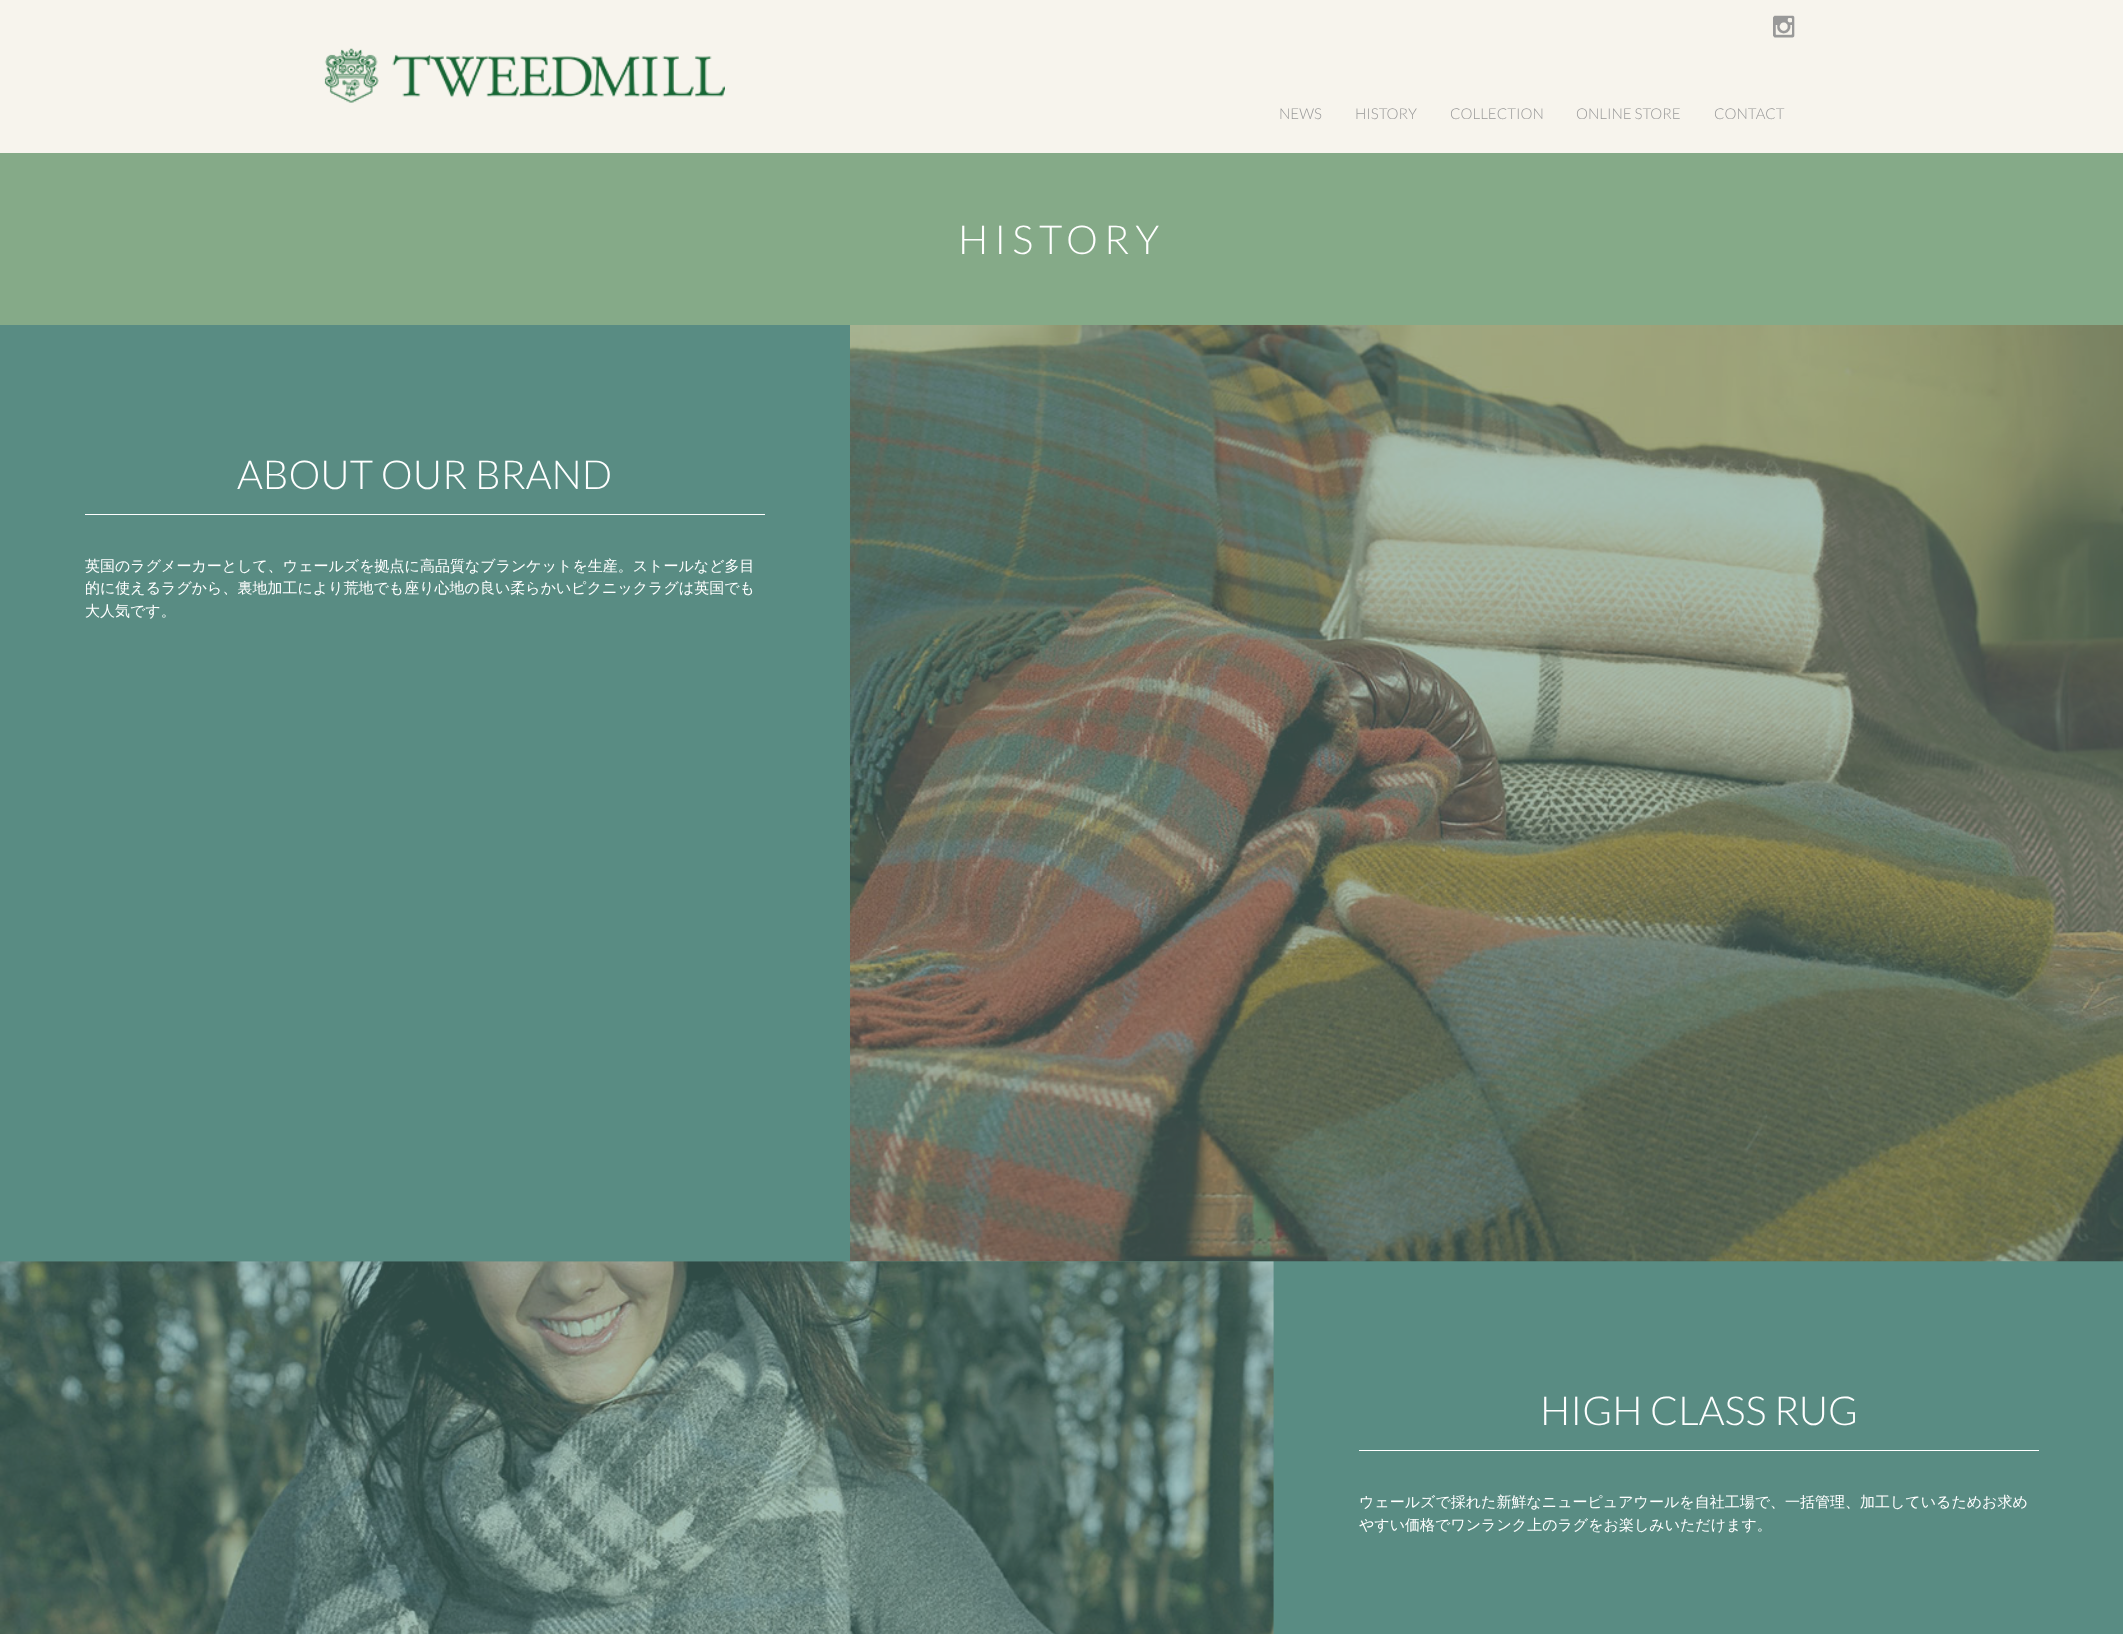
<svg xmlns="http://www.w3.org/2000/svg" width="2123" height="1634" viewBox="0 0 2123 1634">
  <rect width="100%" height="100%" fill="rgb(133,170,136)"/>
  <rect x="0" y="0" width="2123" height="153" fill="rgb(247,244,237)"/>
  <image x="1773" y="15" width="22" height="23" href="pic1.png"/>
  <image x="324" y="48" width="401" height="55" href="pic2.png"/>
  <g font-family="Lato" font-size="15" font-weight="300" fill="rgb(153,153,153)">
    <text x="1279" y="119">NEWS</text>
    <text x="1355" y="119">HISTORY</text>
    <text x="1450" y="119">COLLECTION</text>
    <text x="1576" y="119">ONLINE STORE</text>
    <text x="1714" y="119">CONTACT</text>
  </g>
  <text x="958" y="254" font-family="Lato" font-size="40" font-weight="300" letter-spacing="6" fill="rgb(255,255,255)">HISTORY</text>
  <rect x="0" y="325" width="2123" height="1309" fill="rgb(89,140,131)"/>
  <rect x="85" y="514" width="680" height="1" fill="rgb(255,255,255)"/>
  <text x="237" y="489" font-family="Lato" font-size="40" font-weight="300" fill="rgb(255,255,255)">ABOUT OUR BRAND</text>
  <g font-family="WenQuanYi Zen Hei" font-size="15" font-weight="500" fill="rgb(255,255,255)">
    <text>
      <tspan x="85" y="571">英国のラグメーカーとして、ウェールズを拠点に高品質なブランケットを生産。ストールなど多目</tspan>
      <tspan x="85" y="593">的に使えるラグから、裏地加工により荒地でも座り心地の良い柔らかいピクニックラグは英国でも</tspan>
      <tspan x="85" y="616">大人気です。</tspan>
    </text>
  </g>
  <image x="850" y="325" width="1273" height="937" href="pic3.png"/>
  <image x="0" y="1261" width="1274" height="373" href="pic4.png"/>
  <rect x="1359" y="1450" width="680" height="1" fill="rgb(255,255,255)"/>
  <text x="1540" y="1425" font-family="Lato" font-size="40" font-weight="300" fill="rgb(255,255,255)">HIGH CLASS RUG</text>
  <g font-family="WenQuanYi Zen Hei" font-size="15" font-weight="500" fill="rgb(255,255,255)">
    <text>
      <tspan x="1359" y="1507">ウェールズで採れた新鮮なニューピュアウールを自社工場で、一括管理、加工しているためお求め</tspan>
      <tspan x="1359" y="1530">やすい価格でワンランク上のラグをお楽しみいただけます。</tspan>
    </text>
  </g>
</svg>
